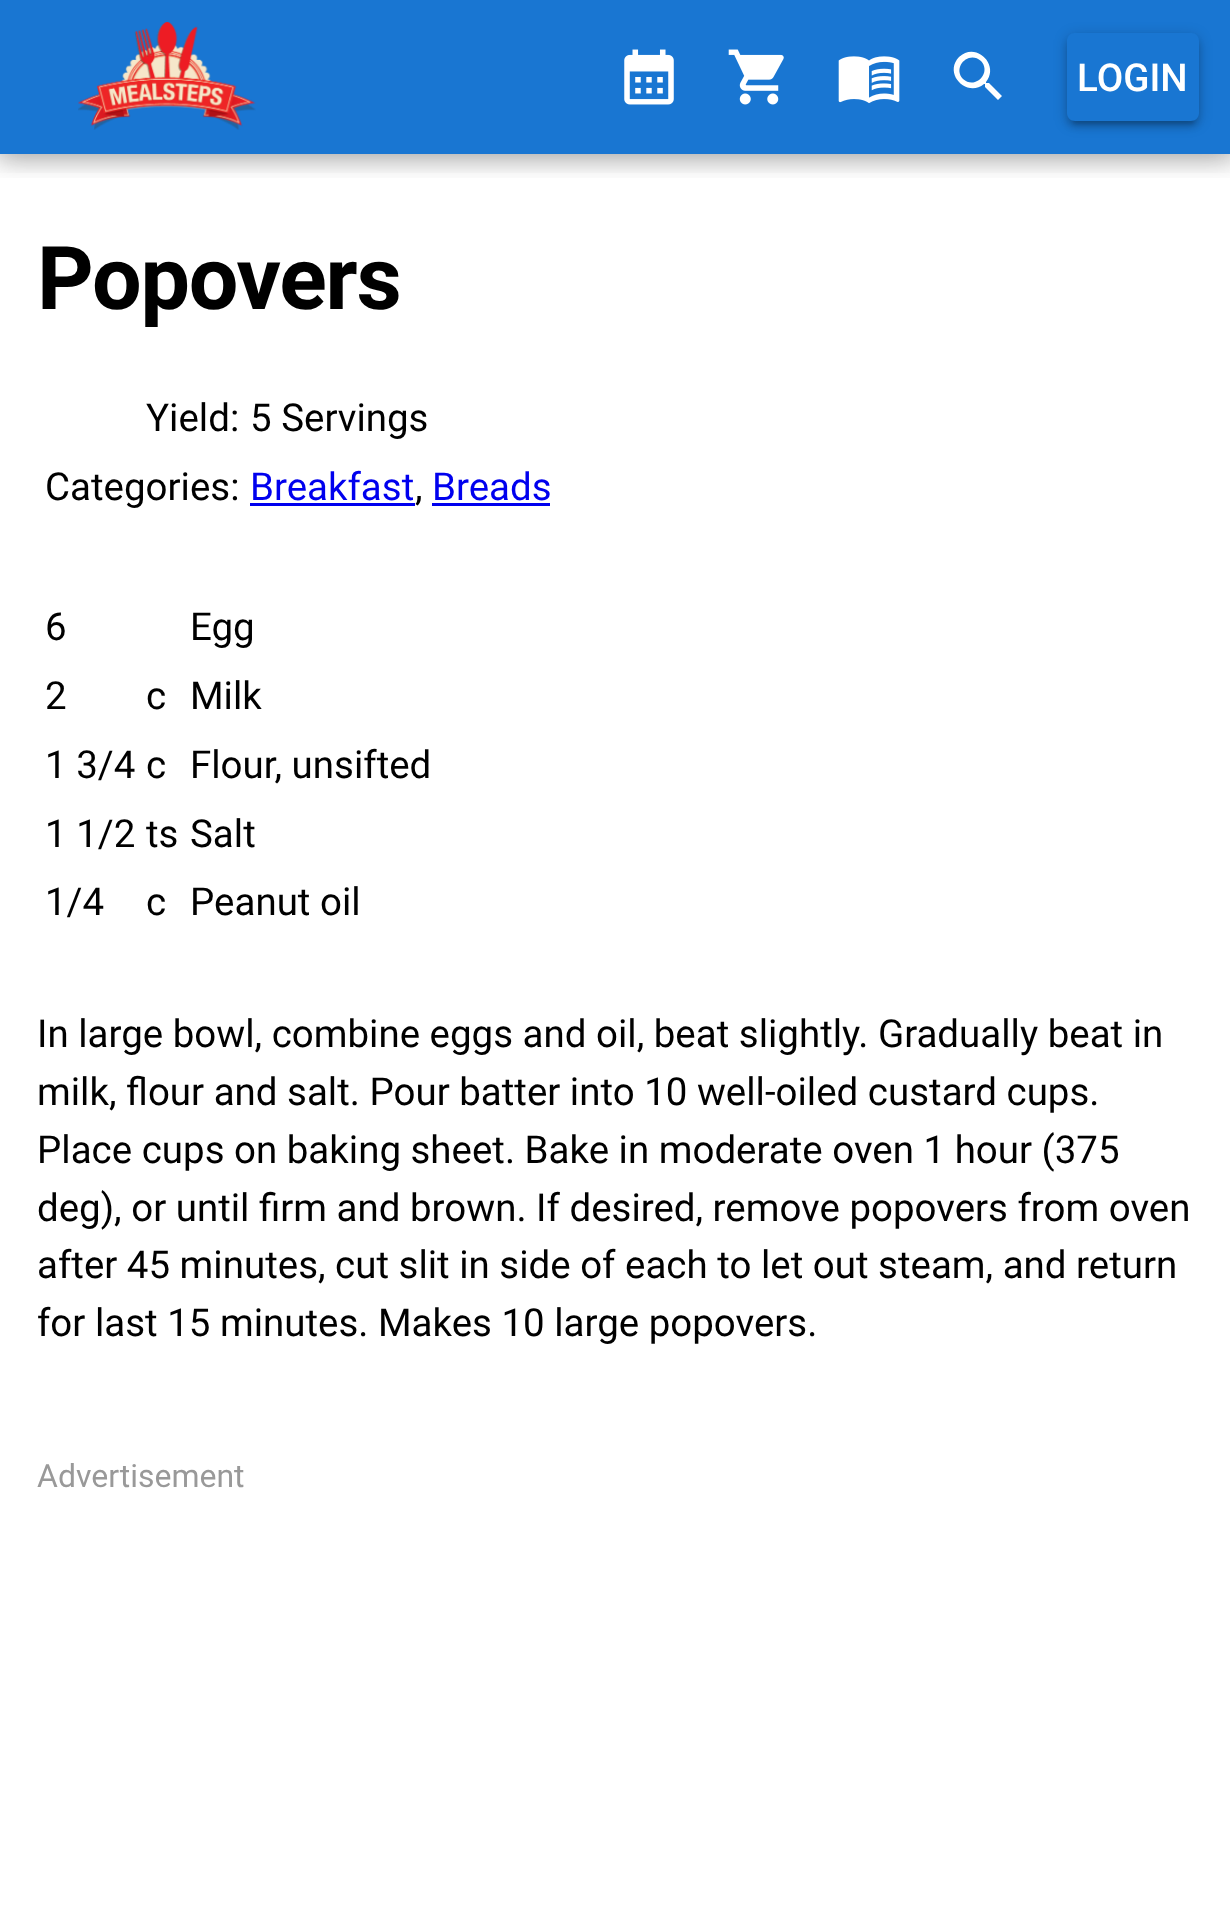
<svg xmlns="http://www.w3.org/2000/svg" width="1230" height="1914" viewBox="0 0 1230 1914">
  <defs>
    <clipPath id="clip1"><rect x="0" y="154" width="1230" height="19"/></clipPath>
    <clipPath id="clip2"><rect x="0" y="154" width="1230" height="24"/></clipPath>
    <clipPath id="clip3"><path d="M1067 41H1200V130H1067ZM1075 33H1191C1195.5 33 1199 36.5 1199 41V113C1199 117.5 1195.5 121 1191 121H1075C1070.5 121 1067 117.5 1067 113V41C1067 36.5 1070.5 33 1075 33Z" clip-rule="evenodd"/></clipPath>
    <clipPath id="clip4"><path d="M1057 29H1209V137H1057ZM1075 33H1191C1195.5 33 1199 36.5 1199 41V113C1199 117.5 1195.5 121 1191 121H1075C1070.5 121 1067 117.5 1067 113V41C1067 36.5 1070.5 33 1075 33Z" clip-rule="evenodd"/></clipPath>
    <clipPath id="clip5"><path d="M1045 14H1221V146H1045ZM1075 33H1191C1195.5 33 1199 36.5 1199 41V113C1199 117.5 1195.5 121 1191 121H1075C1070.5 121 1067 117.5 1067 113V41C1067 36.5 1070.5 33 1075 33Z" clip-rule="evenodd"/></clipPath>
  </defs>
  <rect width="100%" height="100%" fill="rgb(255,255,255)"/>
  <rect x="0" y="0" width="1230" height="154" fill="rgb(25,118,210)"/>
  <image x="78" y="22" width="178" height="108" href="pic1.png"/>
  <image x="624" y="49" width="50" height="56" href="pic2.png"/>
  <image x="728" y="49" width="56" height="56" href="pic3.png"/>
  <image x="838" y="56" width="62" height="48" href="pic4.png"/>
  <path d="M963 79C975 90 992 73 981 61C969 50 952 67 963 79ZM989 83L1002 96L998 100L985 87V84H984C967 98 943 74 959 57C976 41 1000 65 986 82V83Z" fill="rgb(255,255,255)"/>
  <g clip-path="url(#clip1)">
    <rect x="0" y="0" width="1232" height="154" fill="rgba(0,0,0,0.24)" filter="blur(14px)"/>
  </g>
  <g clip-path="url(#clip2)">
    <rect x="-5" y="-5" width="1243" height="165" fill="rgba(0,0,0,0.2)" filter="blur(14px)"/>
  </g>
  <g clip-path="url(#clip3)">
    <rect x="1073" y="47" width="121" height="77" rx="3" fill="rgba(0,0,0,0.12)" filter="blur(1.5px)"/>
  </g>
  <g clip-path="url(#clip4)">
    <rect x="1067" y="39" width="132" height="88" rx="8" fill="rgba(0,0,0,0.14)" filter="blur(3px)"/>
  </g>
  <g clip-path="url(#clip5)">
    <rect x="1067" y="36" width="132" height="88" rx="8" fill="rgba(0,0,0,0.2)" filter="blur(7px)"/>
  </g>
  <text x="1077" y="91" font-family="Roboto" font-size="38.5" font-weight="500" fill="rgb(255,255,255)">LOGIN</text>
  <text x="37" y="309" font-family="Roboto" font-size="88" font-weight="bold" letter-spacing="-1.25" fill="rgb(0,0,0)">Popovers</text>
  <g font-family="Roboto" font-size="38.5" fill="rgb(0,0,0)">
    <text x="146" y="431">Yield:</text>
    <text x="250" y="431">5 Servings</text>
    <text x="45" y="500">Categories:</text>
  </g>
  <text x="250" y="500" font-family="Roboto" font-size="38.5" fill="rgb(0,0,238)">Breakfast</text>
  <rect x="250" y="503" width="165" height="3" fill="rgb(0,0,238)"/>
  <text x="415" y="500" font-family="Roboto" font-size="38.5" fill="rgb(0,0,0)">,</text>
  <rect x="432" y="503" width="118" height="3" fill="rgb(0,0,238)"/>
  <text x="432" y="500" font-family="Roboto" font-size="38.5" fill="rgb(0,0,238)">Breads</text>
  <g font-family="Roboto" font-size="38.5" fill="rgb(0,0,0)">
    <text x="45" y="640">6</text>
    <text x="190" y="640">Egg</text>
    <text x="45" y="709">2</text>
    <text x="146" y="709">c</text>
    <text x="190" y="709">Milk</text>
    <text x="45" y="778">1 3/4</text>
    <text x="146" y="778">c</text>
    <text x="190" y="778">Flour, unsifted</text>
    <text x="45" y="847">1 1/2</text>
    <text x="146" y="847">ts</text>
    <text x="190" y="847">Salt</text>
    <text x="45" y="915">1/4</text>
    <text x="146" y="915">c</text>
    <text x="190" y="915">Peanut oil</text>
    <text>
      <tspan x="37" y="1047">In large bowl, combine eggs and oil, beat slightly. Gradually beat in</tspan>
      <tspan x="37" y="1105">milk, flour and salt. Pour batter into 10 well-oiled custard cups.</tspan>
      <tspan x="37" y="1163">Place cups on baking sheet. Bake in moderate oven 1 hour (375</tspan>
      <tspan x="37" y="1221">deg), or until firm and brown. If desired, remove popovers from oven</tspan>
      <tspan x="37" y="1278">after 45 minutes, cut slit in side of each to let out steam, and return</tspan>
      <tspan x="37" y="1336">for last 15 minutes. Makes 10 large popovers.</tspan>
    </text>
  </g>
  <text x="37" y="1487" font-family="Roboto" font-size="32" fill="rgb(153,153,153)">Advertisement</text>
</svg>
